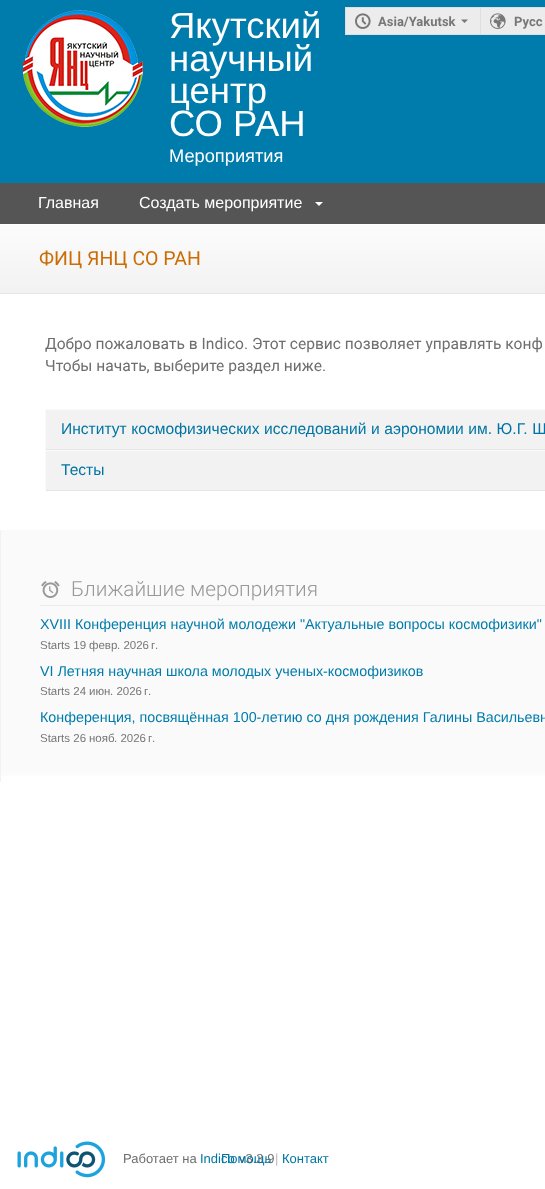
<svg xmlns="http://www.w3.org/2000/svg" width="545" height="1189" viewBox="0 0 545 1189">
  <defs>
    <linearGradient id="g1" gradientUnits="userSpaceOnUse" x1="474" y1="225" x2="474" y2="293"><stop offset="0" stop-color="rgb(252,252,252)"/><stop offset="1" stop-color="rgb(242,242,242)"/></linearGradient>
    <linearGradient id="g2" gradientUnits="userSpaceOnUse" x1="474" y1="530" x2="474" y2="782"><stop offset="0.95" stop-color="rgb(250,250,250)"/><stop offset="1" stop-color="rgb(255,255,255)"/></linearGradient>
  </defs>
  <rect width="100%" height="100%" fill="rgb(255,255,255)"/>
  <rect x="0" y="0" width="545" height="183" fill="rgb(0,124,172)"/>
  <image x="23" y="10" width="120" height="117" href="pic1.png"/>
  <g font-family="Liberation Sans" font-size="36.5" fill="rgb(255,255,255)">
    <text>
      <tspan x="169" y="38">Якутский</tspan>
      <tspan x="169" y="71">научный</tspan>
      <tspan x="169" y="103">центр</tspan>
      <tspan x="169" y="136">СО РАН</tspan>
    </text>
  </g>
  <text x="169" y="162" font-family="Liberation Sans" font-size="18.25" fill="rgb(255,255,255)">Мероприятия</text>
  <rect x="346" y="8" width="134" height="26" fill="rgb(236,236,236)"/>
  <rect x="345" y="7" width="135" height="1" fill="rgb(223,223,223)"/>
  <rect x="345" y="34" width="135" height="1" fill="rgb(223,223,223)"/>
  <rect x="345" y="7" width="1" height="28" fill="rgb(223,223,223)"/>
  <image x="355" y="13" width="16" height="16" href="pic2.png"/>
  <text x="378" y="26" font-family="Roboto" font-size="13" font-weight="bold" fill="rgb(119,119,119)">Asia/Yakutsk</text>
  <path d="M461 19.5L464.5 23L468 19.5Z" fill="rgb(119,119,119)"/>
  <rect x="480.5" y="7.5" width="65" height="27" fill="rgb(236,236,236)" stroke="rgb(223,223,223)"/>
  <image x="490" y="13" width="16" height="16" href="pic3.png"/>
  <text x="514" y="26" font-family="Roboto" font-size="13" font-weight="bold" fill="rgb(119,119,119)">Русс</text>
  <rect x="0" y="183" width="545" height="41" fill="rgb(85,85,85)"/>
  <g font-family="Liberation Sans" font-size="16" fill="rgb(255,255,255)">
    <text x="38" y="208">Главная</text>
    <text x="139" y="208">Создать мероприятие</text>
  </g>
  <path d="M315 202L319 206L323 202Z" fill="rgb(255,255,255)"/>
  <rect x="0" y="225" width="545" height="68" fill="url(#g1)"/>
  <rect x="0" y="293" width="545" height="1" fill="rgb(230,230,230)"/>
  <text x="39" y="265" font-family="Roboto" font-size="19.5" fill="rgb(203,109,4)">ФИЦ ЯНЦ СО РАН</text>
  <g font-family="Roboto" font-size="15.6" fill="rgb(110,110,110)">
    <text>
      <tspan x="45" y="349">Добро пожаловать в Indico. Этот сервис позволяет управлять конф</tspan>
      <tspan x="45" y="371">Чтобы начать, выберите раздел ниже.</tspan>
    </text>
  </g>
  <rect x="45" y="409" width="1" height="82" fill="rgb(250,250,250)"/>
  <rect x="46" y="410" width="499" height="39" fill="rgb(242,242,242)"/>
  <rect x="46" y="409" width="499" height="1" fill="rgb(250,250,250)"/>
  <rect x="46" y="449" width="499" height="1" fill="rgb(230,230,230)"/>
  <text x="61" y="434" word-spacing="0.25" font-family="Liberation Sans" font-size="15.6" fill="rgb(0,117,163)">Институт космофизических исследований и аэрономии им. Ю.Г. Ш</text>
  <rect x="46" y="451" width="499" height="39" fill="rgb(242,242,242)"/>
  <rect x="46" y="450" width="499" height="1" fill="rgb(250,250,250)"/>
  <rect x="46" y="490" width="499" height="1" fill="rgb(230,230,230)"/>
  <text x="61" y="475" font-family="Liberation Sans" font-size="15.6" fill="rgb(0,117,163)">Тесты</text>
  <rect x="1" y="530" width="544" height="246" fill="url(#g2)"/>
  <rect x="0" y="530" width="1" height="252" fill="rgb(242,242,242)"/>
  <rect x="40" y="605" width="505" height="1" fill="rgb(235,235,235)"/>
  <image x="41" y="581" width="19" height="17" href="pic4.png"/>
  <text x="71" y="596" font-family="Roboto" font-size="20.75" font-weight="300" fill="rgb(153,153,153)">Ближайшие мероприятия</text>
  <text x="40" y="629" font-family="Liberation Sans" font-size="14.3" fill="rgb(0,124,172)">XVIII Конференция научной молодежи "Актуальные вопросы космофизики"</text>
  <text x="40" y="649" font-family="'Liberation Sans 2'" font-size="11.5" fill="rgb(119,119,119)">Starts 19</text>
  <text x="89" y="649" font-family="Liberation Sans" font-size="11.5" fill="rgb(119,119,119)">февр</text>
  <text x="117" y="649" font-family="'Liberation Sans 2'" font-size="11.5" fill="rgb(119,119,119)">. 2026</text>
  <text x="151" y="649" font-family="Liberation Sans" font-size="11.5" fill="rgb(119,119,119)">г</text>
  <text x="155" y="649" font-family="'Liberation Sans 2'" font-size="11.5" fill="rgb(119,119,119)">.</text>
  <text x="40" y="676" font-family="Liberation Sans" font-size="14.3" fill="rgb(0,124,172)">VI Летняя научная школа молодых ученых-космофизиков</text>
  <text x="40" y="695" font-family="'Liberation Sans 2'" font-size="11.5" fill="rgb(119,119,119)">Starts 24</text>
  <text x="89" y="695" font-family="Liberation Sans" font-size="11.5" fill="rgb(119,119,119)">июн</text>
  <text x="110" y="695" font-family="'Liberation Sans 2'" font-size="11.5" fill="rgb(119,119,119)">. 2026</text>
  <text x="144" y="695" font-family="Liberation Sans" font-size="11.5" fill="rgb(119,119,119)">г</text>
  <text x="148" y="695" font-family="'Liberation Sans 2'" font-size="11.5" fill="rgb(119,119,119)">.</text>
  <text x="40" y="722" font-family="Liberation Sans" font-size="14.3" fill="rgb(0,124,172)">Конференция, посвящённая 100-летию со дня рождения Галины Васильевн</text>
  <text x="40" y="742" font-family="'Liberation Sans 2'" font-size="11.5" fill="rgb(119,119,119)">Starts 26</text>
  <text x="89" y="742" font-family="Liberation Sans" font-size="11.5" fill="rgb(119,119,119)">нояб</text>
  <text x="114" y="742" font-family="'Liberation Sans 2'" font-size="11.5" fill="rgb(119,119,119)">. 2026</text>
  <text x="148" y="742" font-family="Liberation Sans" font-size="11.5" fill="rgb(119,119,119)">г</text>
  <text x="152" y="742" font-family="'Liberation Sans 2'" font-size="11.5" fill="rgb(119,119,119)">.</text>
  <image x="17" y="1141" width="88" height="37" href="pic5.png"/>
  <text x="123" y="1163" font-family="Liberation Sans" font-size="13" fill="rgb(110,110,110)">Работает на</text>
  <text x="200" y="1163" font-family="'Liberation Sans 2'" font-size="13" fill="rgb(0,117,163)">Indico</text>
  <text x="239" y="1163" font-family="'Liberation Sans 2'" font-size="13" fill="rgb(110,110,110)">v3.3.9</text>
  <text x="221" y="1163" font-family="Liberation Sans" font-size="13" fill="rgb(0,117,163)">Помощь</text>
  <text x="275" y="1163" font-family="'Liberation Sans 2'" font-size="13" fill="rgb(187,187,187)">|</text>
  <text x="282" y="1163" font-family="Liberation Sans" font-size="13" fill="rgb(0,117,163)">Контакт</text>
</svg>
